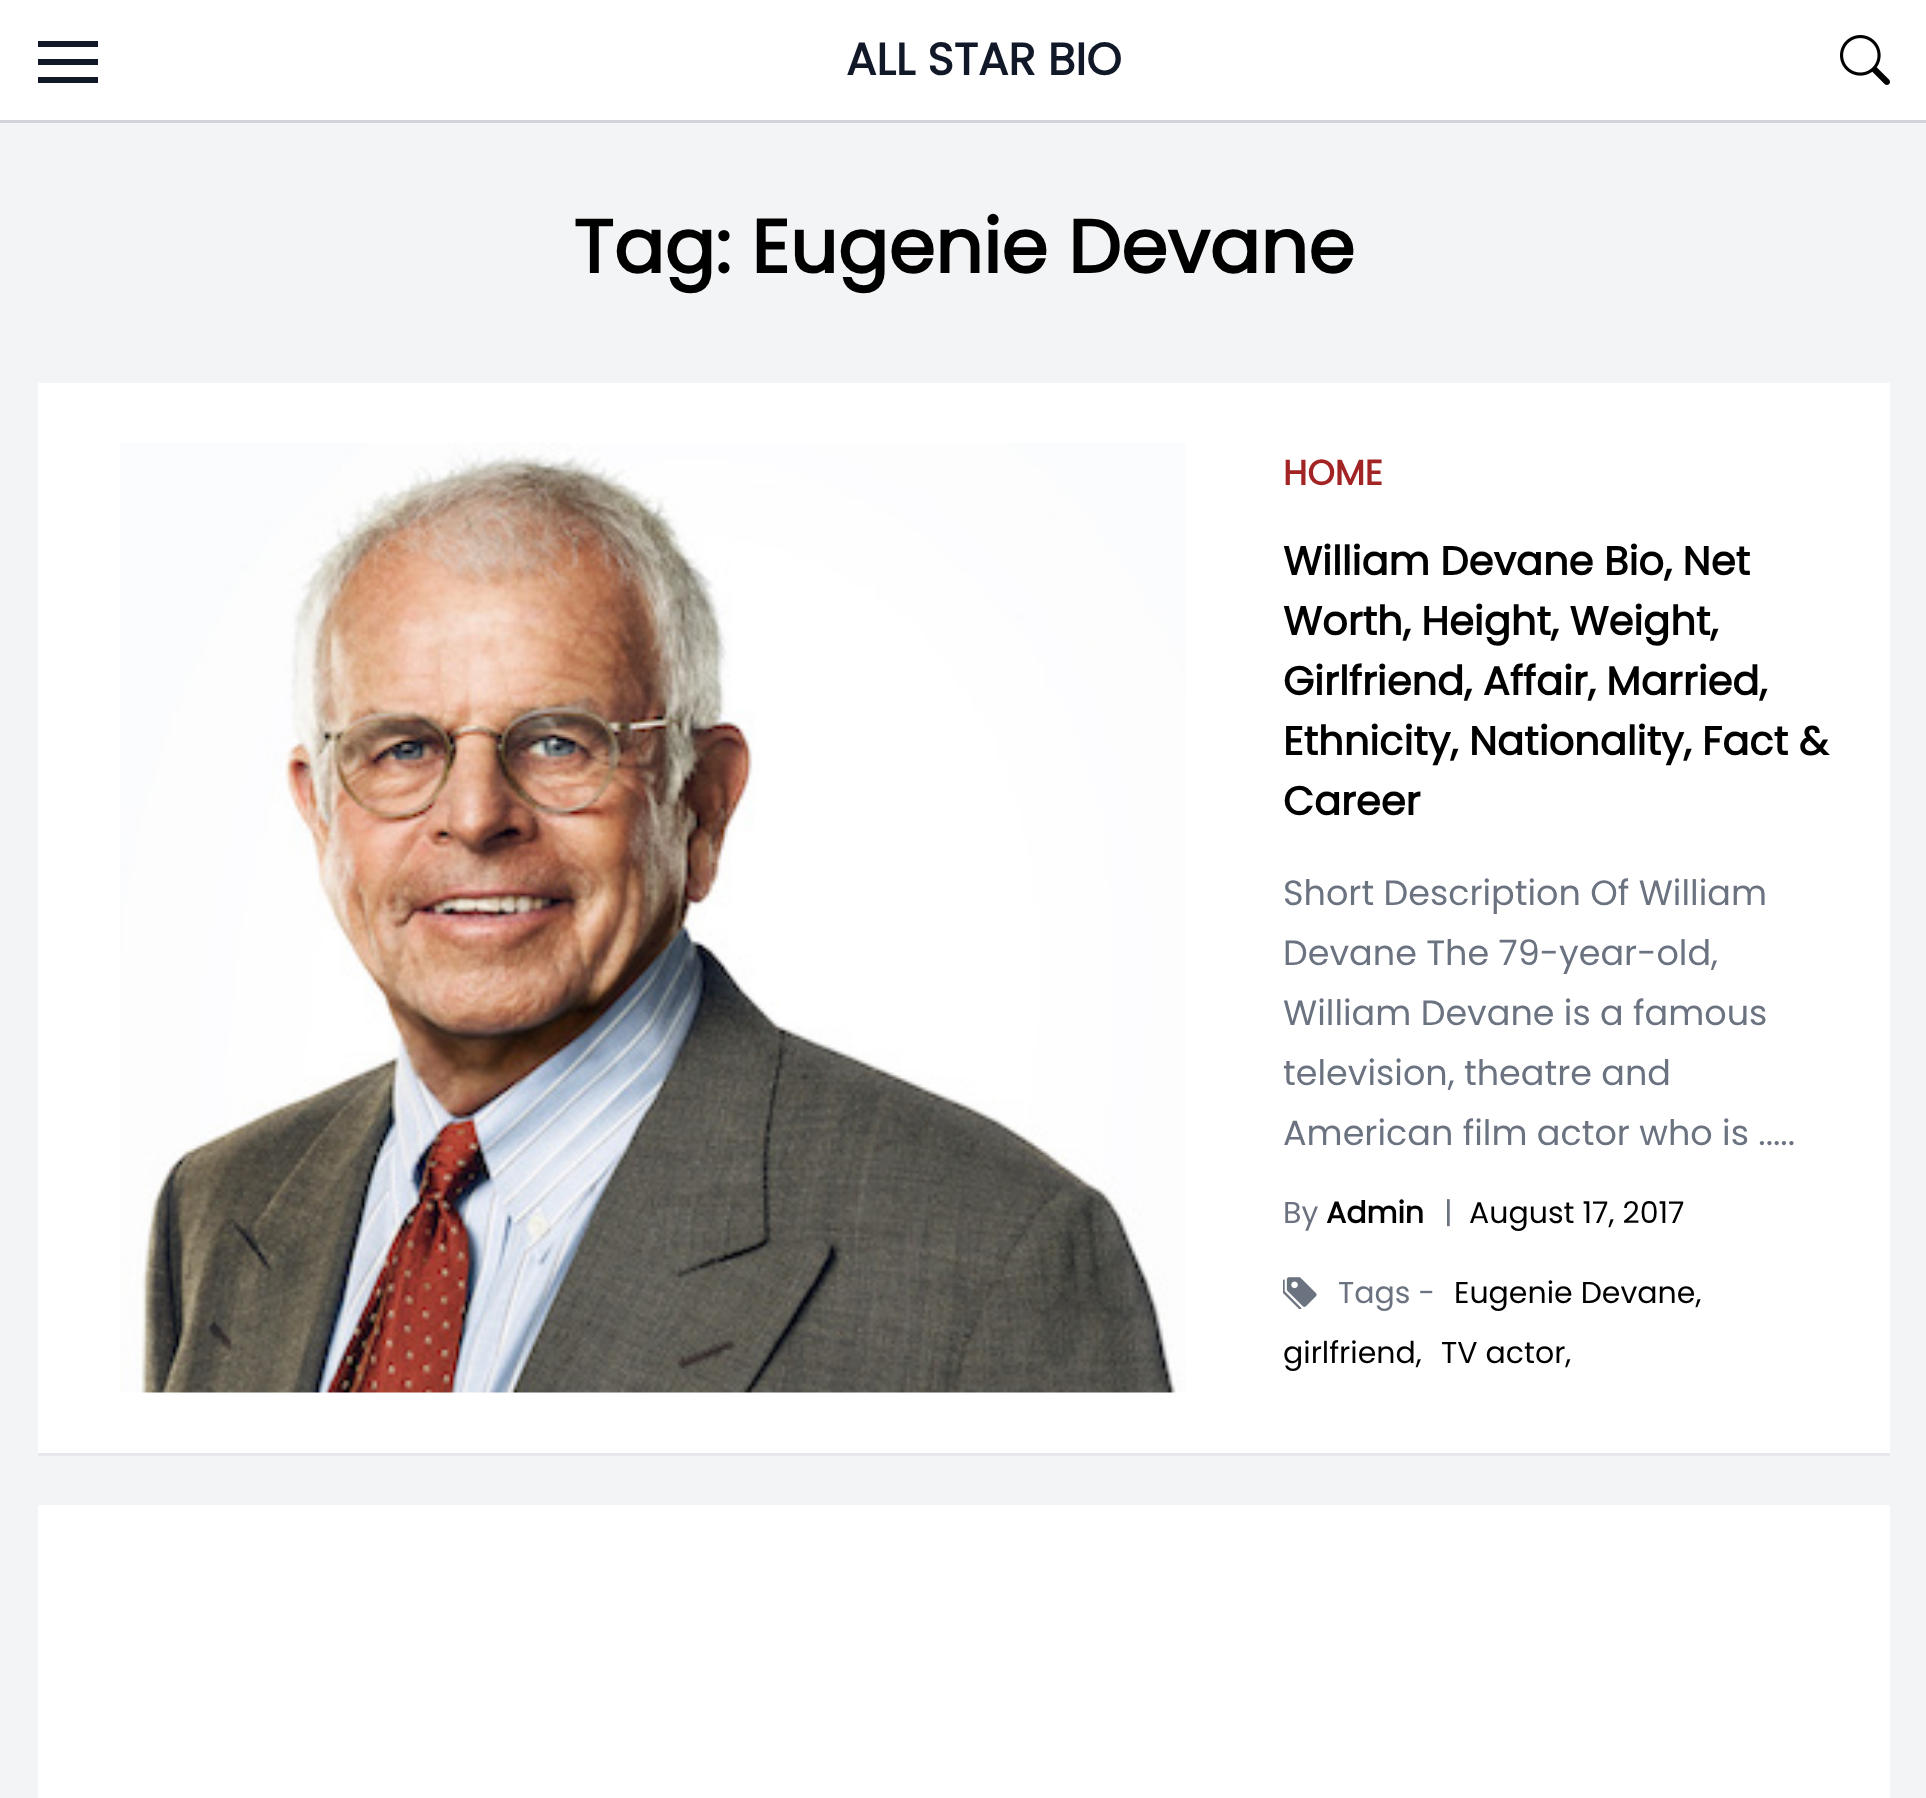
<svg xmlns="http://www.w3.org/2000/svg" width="1926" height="1798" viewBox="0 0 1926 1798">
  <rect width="100%" height="100%" fill="rgb(255,255,255)"/>
  <rect x="0" y="120" width="1926" height="3" fill="rgb(209,213,219)"/>
  <path d="M38 41H98V47H38ZM38 59H98V65H38ZM38 77H98V83H38Z" fill="rgb(17,24,39)" fill-rule="evenodd"/>
  <text x="846" y="75" font-family="Poppins" font-size="45" font-weight="bold" fill="rgb(17,24,39)">ALL STAR BIO</text>
  <image x="1840" y="35" width="50" height="50" href="pic1.png"/>
  <rect x="0" y="123" width="1926" height="1675" fill="rgb(243,244,245)"/>
  <text x="573" y="273" font-family="Poppins" font-size="75" font-weight="bold" fill="rgb(0,0,0)">Tag: Eugenie Devane</text>
  <rect x="38" y="383" width="1852" height="1070" fill="rgb(255,255,255)"/>
  <rect x="38" y="1453" width="1852" height="3" fill="rgb(229,231,235)"/>
  <image x="120" y="443" width="1066" height="950" href="pic2.png"/>
  <text x="1283" y="485" font-family="Poppins" font-size="35" font-weight="bold" fill="rgb(163,36,36)">HOME</text>
  <g font-family="Poppins" font-size="40" font-weight="bold" fill="rgb(0,0,0)">
    <text>
      <tspan x="1283" y="575">William Devane Bio, Net</tspan>
      <tspan x="1283" y="635">Worth, Height, Weight,</tspan>
      <tspan x="1283" y="695">Girlfriend, Affair, Married,</tspan>
      <tspan x="1283" y="755">Ethnicity, Nationality, Fact &amp;</tspan>
      <tspan x="1283" y="815">Career</tspan>
    </text>
  </g>
  <g font-family="Poppins" font-size="35" fill="rgb(107,114,128)">
    <text>
      <tspan x="1283" y="905">Short Description Of William</tspan>
      <tspan x="1283" y="965">Devane The 79-year-old,</tspan>
      <tspan x="1283" y="1025">William Devane is a famous</tspan>
      <tspan x="1283" y="1085">television, theatre and</tspan>
      <tspan x="1283" y="1145">American film actor who is .....</tspan>
    </text>
  </g>
  <text x="1283" y="1223" font-family="Poppins" font-size="30" fill="rgb(107,114,128)">By</text>
  <text x="1326" y="1223" font-family="Poppins" font-size="30" font-weight="bold" fill="rgb(0,0,0)">Admin</text>
  <text x="1444" y="1223" font-family="Poppins" font-size="30" fill="rgb(107,114,128)">|</text>
  <text x="1469" y="1223" font-family="Poppins" font-size="30" fill="rgb(0,0,0)">August 17, 2017</text>
  <image x="1283" y="1277" width="34" height="32" href="pic3.png"/>
  <text x="1338" y="1303" font-family="Poppins" font-size="30" fill="rgb(107,114,128)">Tags -</text>
  <g font-family="Poppins" font-size="30" fill="rgb(0,0,0)">
    <text x="1454" y="1303">Eugenie Devane,</text>
    <text x="1283" y="1363">girlfriend,</text>
    <text x="1441" y="1363">TV actor,</text>
  </g>
  <rect x="38" y="1505" width="1852" height="293" fill="rgb(255,255,255)"/>
</svg>
